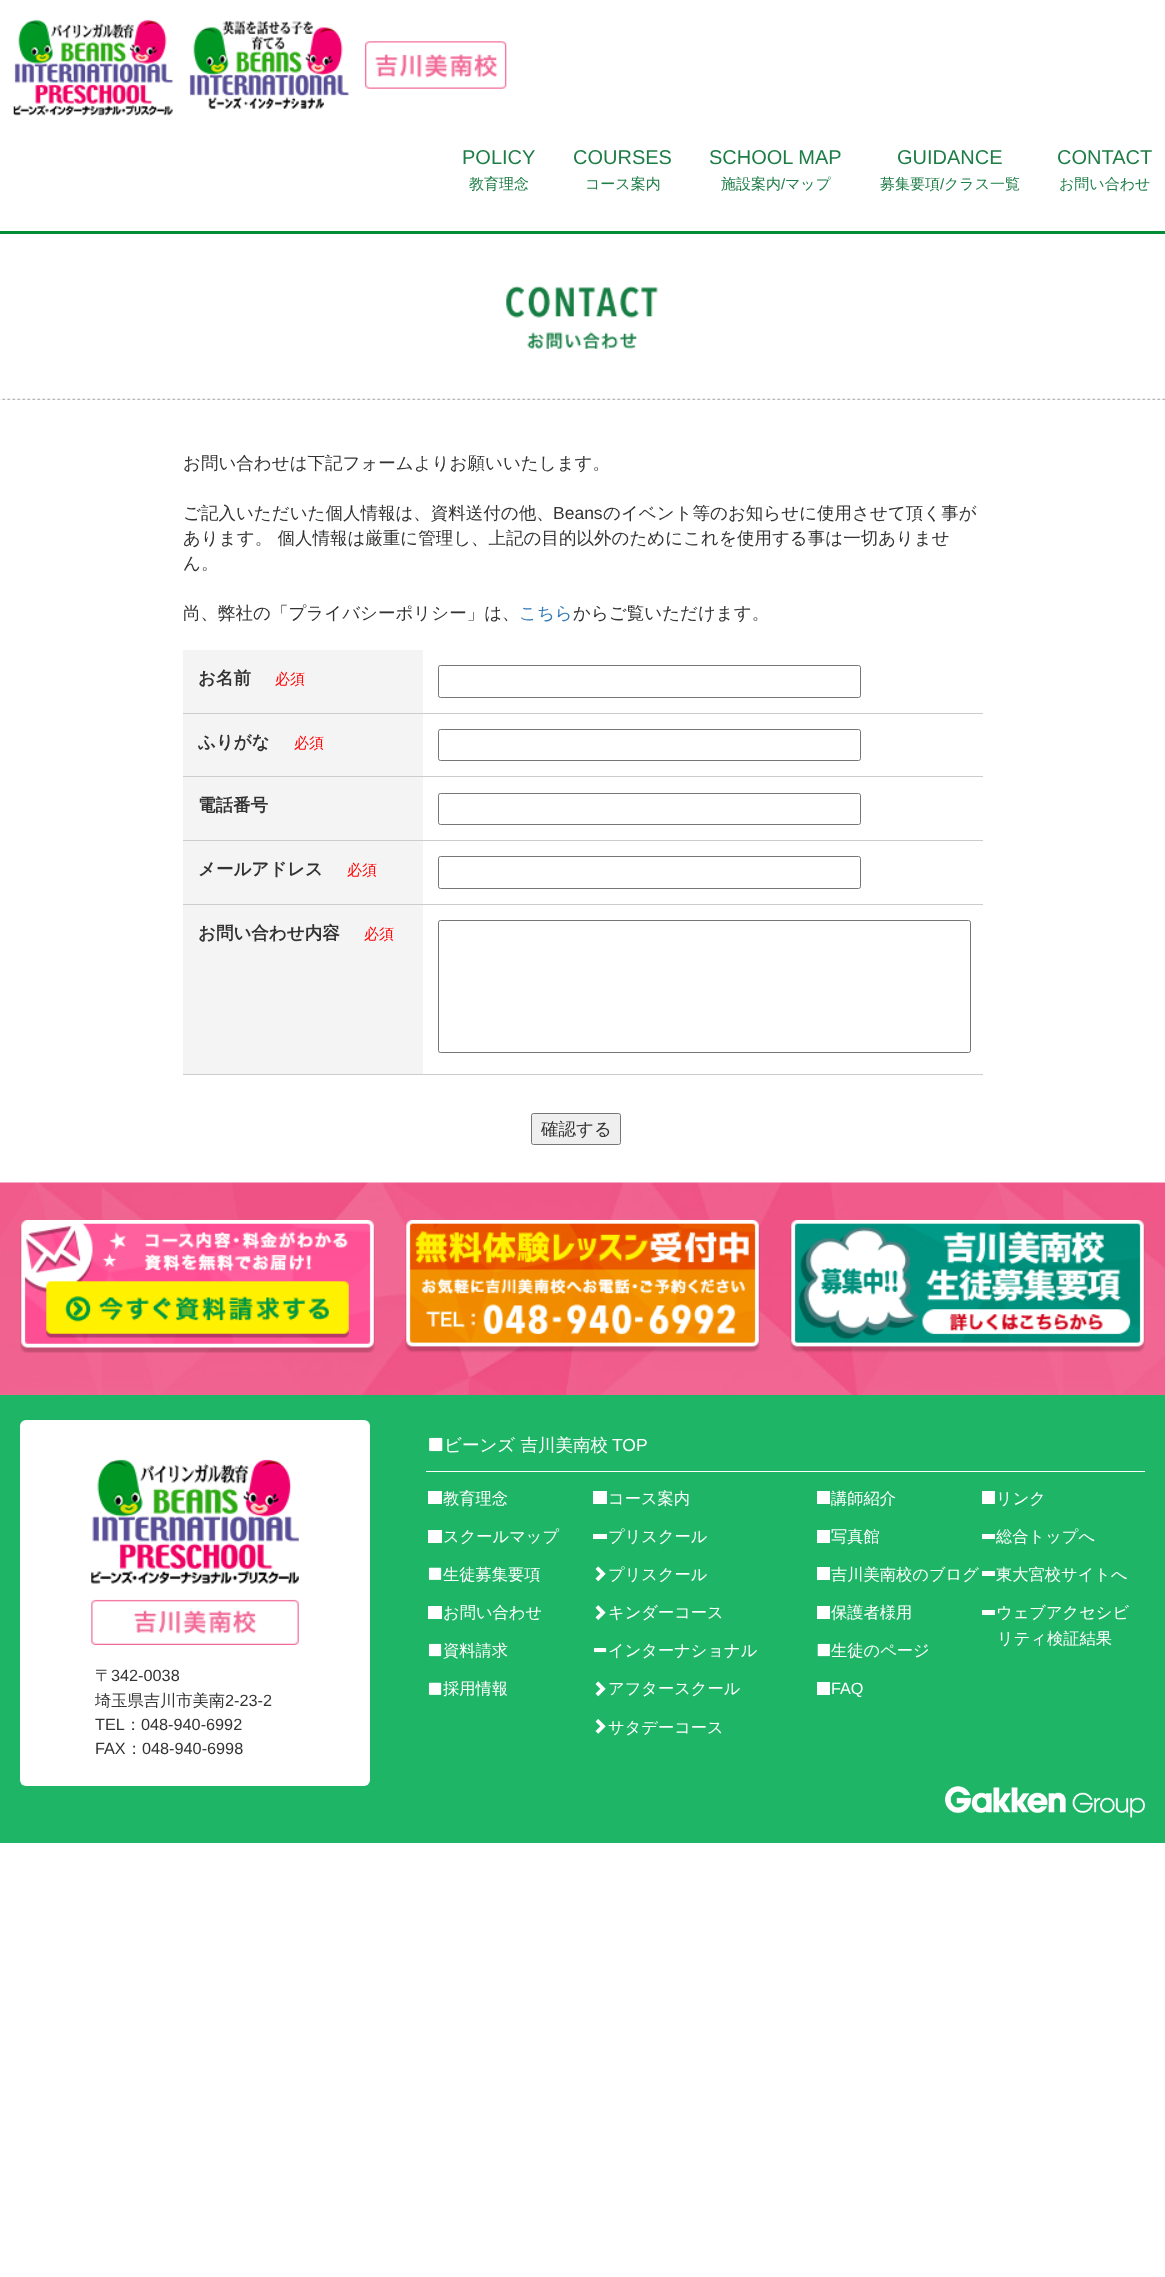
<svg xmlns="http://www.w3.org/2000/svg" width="1165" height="2277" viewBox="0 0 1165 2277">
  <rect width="100%" height="100%" fill="rgb(255,255,255)"/>
  <image x="13" y="19" width="494" height="97" href="pic1.png"/>
  <text x="462" y="164" font-family="Liberation Sans" font-size="20" fill="rgb(30,125,70)">POLICY</text>
  <text x="469" y="189" font-family="WenQuanYi Zen Hei" font-size="15" font-weight="500" fill="rgb(30,125,70)">教育理念</text>
  <text x="573" y="164" font-family="Liberation Sans" font-size="20" fill="rgb(30,125,70)">COURSES</text>
  <text x="585" y="189" font-family="WenQuanYi Zen Hei" font-size="15" font-weight="500" fill="rgb(30,125,70)">コース案内</text>
  <text x="709" y="164" font-family="Liberation Sans" font-size="20" fill="rgb(30,125,70)">SCHOOL MAP</text>
  <text x="721" y="189" font-family="WenQuanYi Zen Hei" font-size="15" font-weight="500" fill="rgb(30,125,70)">施設案内</text>
  <text x="781" y="189" font-family="Liberation Sans" font-size="15" fill="rgb(30,125,70)">/</text>
  <text x="785" y="189" font-family="WenQuanYi Zen Hei" font-size="15" font-weight="500" fill="rgb(30,125,70)">マップ</text>
  <text x="897" y="164" font-family="Liberation Sans" font-size="20" fill="rgb(30,125,70)">GUIDANCE</text>
  <text x="880" y="189" font-family="WenQuanYi Zen Hei" font-size="15" font-weight="500" fill="rgb(30,125,70)">募集要項</text>
  <text x="940" y="189" font-family="Liberation Sans" font-size="15" fill="rgb(30,125,70)">/</text>
  <text x="944" y="189" font-family="WenQuanYi Zen Hei" font-size="15" font-weight="500" fill="rgb(30,125,70)">クラス一覧</text>
  <text x="1057" y="164" font-family="Liberation Sans" font-size="20" fill="rgb(30,125,70)">CONTACT</text>
  <text x="1059" y="189" font-family="WenQuanYi Zen Hei" font-size="15" font-weight="500" fill="rgb(30,125,70)">お問い合わせ</text>
  <image x="0" y="398" width="1165" height="2" href="pic2.png"/>
  <rect x="0" y="231" width="1165" height="3" fill="rgb(0,141,51)"/>
  <image x="506" y="286" width="152" height="63" href="pic3.png"/>
  <g font-family="WenQuanYi Zen Hei" font-size="17.5" font-weight="500" fill="rgb(51,51,51)">
    <text x="183" y="469">お問い合わせは下記フォームよりお願いいたします。</text>
    <text x="183" y="519">ご記入いただいた個人情報は、資料送付の他、</text>
  </g>
  <text x="553" y="519" font-family="Liberation Sans" font-size="17.5" fill="rgb(51,51,51)">Beans</text>
  <g font-family="WenQuanYi Zen Hei" font-size="17.5" font-weight="500" fill="rgb(51,51,51)">
    <text x="603" y="519">のイベント等のお知らせに使用させて頂く事が</text>
    <text>
      <tspan x="183" y="544">あります。 個人情報は厳重に管理し、上記の目的以外のためにこれを使用する事は一切ありませ</tspan>
      <tspan x="183" y="569">ん。</tspan>
    </text>
    <text x="183" y="619">尚、弊社の「プライバシーポリシー」は、</text>
  </g>
  <text x="519" y="619" font-family="WenQuanYi Zen Hei" font-size="17.5" font-weight="500" fill="rgb(51,122,183)">こちら</text>
  <text x="573" y="619" font-family="WenQuanYi Zen Hei" font-size="17.5" font-weight="500" fill="rgb(51,51,51)">からご覧いただけます。</text>
  <rect x="183" y="650" width="240" height="63" fill="rgb(244,244,244)"/>
  <rect x="183" y="713" width="800" height="1" fill="rgb(204,204,204)"/>
  <text x="198" y="684" font-family="WenQuanYi Zen Hei" font-size="17.5" font-weight="bold" fill="rgb(51,51,51)">お名前</text>
  <text x="275" y="684" font-family="WenQuanYi Zen Hei" font-size="15" font-weight="500" fill="rgb(255,0,0)">必須</text>
  <rect x="438.5" y="665.5" width="422" height="32" rx="2" fill="none" stroke="rgb(118,118,118)"/>
  <rect x="183" y="714" width="240" height="126" fill="rgb(244,244,244)"/>
  <rect x="183" y="776" width="800" height="1" fill="rgb(204,204,204)"/>
  <text x="198" y="748" font-family="WenQuanYi Zen Hei" font-size="17.5" font-weight="bold" fill="rgb(51,51,51)">ふりがな</text>
  <text x="294" y="748" font-family="WenQuanYi Zen Hei" font-size="15" font-weight="500" fill="rgb(255,0,0)">必須</text>
  <rect x="438.5" y="729.5" width="422" height="31" rx="2" fill="none" stroke="rgb(118,118,118)"/>
  <rect x="183" y="840" width="800" height="1" fill="rgb(204,204,204)"/>
  <text x="198" y="811" font-family="WenQuanYi Zen Hei" font-size="17.5" font-weight="bold" fill="rgb(51,51,51)">電話番号</text>
  <rect x="438.5" y="793.5" width="422" height="31" rx="2" fill="none" stroke="rgb(118,118,118)"/>
  <rect x="183" y="841" width="240" height="63" fill="rgb(244,244,244)"/>
  <rect x="183" y="904" width="800" height="1" fill="rgb(204,204,204)"/>
  <text x="198" y="875" font-family="WenQuanYi Zen Hei" font-size="17.5" font-weight="bold" fill="rgb(51,51,51)">メールアドレス</text>
  <text x="347" y="875" font-family="WenQuanYi Zen Hei" font-size="15" font-weight="500" fill="rgb(255,0,0)">必須</text>
  <rect x="438.5" y="856.5" width="422" height="32" rx="2" fill="none" stroke="rgb(118,118,118)"/>
  <rect x="183" y="905" width="240" height="169" fill="rgb(244,244,244)"/>
  <rect x="183" y="1074" width="800" height="1" fill="rgb(204,204,204)"/>
  <text x="198" y="939" font-family="WenQuanYi Zen Hei" font-size="17.5" font-weight="bold" fill="rgb(51,51,51)">お問い合わせ内容</text>
  <text x="364" y="939" font-family="WenQuanYi Zen Hei" font-size="15" font-weight="500" fill="rgb(255,0,0)">必須</text>
  <rect x="438.5" y="920.5" width="532" height="132" rx="2" fill="none" stroke="rgb(118,118,118)"/>
  <rect x="531.5" y="1113.5" width="89" height="31" rx="2" fill="rgb(239,239,239)" stroke="rgb(118,118,118)"/>
  <text x="541" y="1135" font-family="WenQuanYi Zen Hei" font-size="17.5" font-weight="500" fill="rgb(51,51,51)">確認する</text>
  <image x="0" y="1182" width="1165" height="213" href="pic4.png"/>
  <image x="20" y="1220" width="355" height="133" href="pic5.png"/>
  <image x="405" y="1220" width="355" height="133" href="pic6.png"/>
  <image x="790" y="1220" width="355" height="133" href="pic7.png"/>
  <rect x="0" y="1395" width="1165" height="448" fill="rgb(31,181,103)"/>
  <rect x="20" y="1420" width="350" height="366" rx="6" fill="rgb(255,255,255)"/>
  <image x="91" y="1459" width="208" height="186" href="pic8.png"/>
  <text x="95" y="1681" font-family="WenQuanYi Zen Hei" font-size="16.25" font-weight="500" fill="rgb(51,51,51)">〒</text>
  <text x="111" y="1681" font-family="Liberation Sans" font-size="16.25" fill="rgb(51,51,51)">342-0038</text>
  <text x="95" y="1706" font-family="WenQuanYi Zen Hei" font-size="16.25" font-weight="500" fill="rgb(51,51,51)">埼玉県吉川市美南</text>
  <g font-family="Liberation Sans" font-size="16.25" fill="rgb(51,51,51)">
    <text x="225" y="1706">2-23-2</text>
    <text x="95" y="1730">TEL</text>
  </g>
  <text x="125" y="1730" font-family="WenQuanYi Zen Hei" font-size="16.25" font-weight="500" fill="rgb(51,51,51)">：</text>
  <g font-family="Liberation Sans" font-size="16.25" fill="rgb(51,51,51)">
    <text x="141" y="1730">048-940-6992</text>
    <text x="95" y="1754">FAX</text>
  </g>
  <text x="126" y="1754" font-family="WenQuanYi Zen Hei" font-size="16.25" font-weight="500" fill="rgb(51,51,51)">：</text>
  <text x="142" y="1754" font-family="Liberation Sans" font-size="16.25" fill="rgb(51,51,51)">048-940-6998</text>
  <rect x="426" y="1471" width="719" height="1" fill="rgb(255,255,255)"/>
  <image x="429" y="1437" width="14" height="15" href="pic9.png"/>
  <text x="444" y="1451" font-family="WenQuanYi Zen Hei" font-size="17.5" font-weight="500" fill="rgb(255,255,255)">ビーンズ 吉川美南校</text>
  <text x="612" y="1451" font-family="Liberation Sans" font-size="17.5" fill="rgb(255,255,255)">TOP</text>
  <rect x="428" y="1491" width="14" height="13" fill="rgb(255,255,255)"/>
  <text x="443" y="1504" font-family="WenQuanYi Zen Hei" font-size="16.25" font-weight="500" fill="rgb(255,255,255)">教育理念</text>
  <rect x="428" y="1530" width="14" height="13" fill="rgb(255,255,255)"/>
  <text x="443" y="1542" font-family="WenQuanYi Zen Hei" font-size="16.25" font-weight="500" fill="rgb(255,255,255)">スクールマップ</text>
  <image x="428" y="1567" width="14" height="13" href="pic10.png"/>
  <text x="443" y="1580" font-family="WenQuanYi Zen Hei" font-size="16.25" font-weight="500" fill="rgb(255,255,255)">生徒募集要項</text>
  <rect x="428" y="1606" width="14" height="13" fill="rgb(255,255,255)"/>
  <text x="443" y="1618" font-family="WenQuanYi Zen Hei" font-size="16.25" font-weight="500" fill="rgb(255,255,255)">お問い合わせ</text>
  <image x="428" y="1643" width="14" height="14" href="pic11.png"/>
  <text x="443" y="1656" font-family="WenQuanYi Zen Hei" font-size="16.25" font-weight="500" fill="rgb(255,255,255)">資料請求</text>
  <image x="428" y="1682" width="14" height="13" href="pic10.png"/>
  <text x="443" y="1694" font-family="WenQuanYi Zen Hei" font-size="16.25" font-weight="500" fill="rgb(255,255,255)">採用情報</text>
  <rect x="593" y="1491" width="14" height="13" fill="rgb(255,255,255)"/>
  <text x="608" y="1504" font-family="WenQuanYi Zen Hei" font-size="16.25" font-weight="500" fill="rgb(255,255,255)">コース案内</text>
  <rect x="593" y="1534" width="14" height="5" fill="rgb(255,255,255)"/>
  <text x="608" y="1542" font-family="WenQuanYi Zen Hei" font-size="16.25" font-weight="500" fill="rgb(255,255,255)">プリスクール</text>
  <image x="595" y="1566" width="11" height="16" href="pic12.png"/>
  <text x="608" y="1580" font-family="WenQuanYi Zen Hei" font-size="16.25" font-weight="500" fill="rgb(255,255,255)">プリスクール</text>
  <image x="595" y="1605" width="11" height="15" href="pic13.png"/>
  <text x="608" y="1618" font-family="WenQuanYi Zen Hei" font-size="16.25" font-weight="500" fill="rgb(255,255,255)">キンダーコース</text>
  <image x="593" y="1648" width="14" height="5" href="pic14.png"/>
  <text x="608" y="1656" font-family="WenQuanYi Zen Hei" font-size="16.25" font-weight="500" fill="rgb(255,255,255)">インターナショナル</text>
  <image x="595" y="1681" width="11" height="16" href="pic12.png"/>
  <text x="608" y="1694" font-family="WenQuanYi Zen Hei" font-size="16.25" font-weight="500" fill="rgb(255,255,255)">アフタースクール</text>
  <image x="595" y="1719" width="11" height="15" href="pic15.png"/>
  <text x="608" y="1733" font-family="WenQuanYi Zen Hei" font-size="16.25" font-weight="500" fill="rgb(255,255,255)">サタデーコース</text>
  <rect x="817" y="1491" width="13" height="13" fill="rgb(255,255,255)"/>
  <text x="831" y="1504" font-family="WenQuanYi Zen Hei" font-size="16.25" font-weight="500" fill="rgb(255,255,255)">講師紹介</text>
  <rect x="817" y="1530" width="13" height="13" fill="rgb(255,255,255)"/>
  <text x="831" y="1542" font-family="WenQuanYi Zen Hei" font-size="16.25" font-weight="500" fill="rgb(255,255,255)">写真館</text>
  <rect x="817" y="1567" width="13" height="13" fill="rgb(255,255,255)"/>
  <text x="831" y="1580" font-family="WenQuanYi Zen Hei" font-size="16.25" font-weight="500" fill="rgb(255,255,255)">吉川美南校のブログ</text>
  <rect x="817" y="1606" width="13" height="13" fill="rgb(255,255,255)"/>
  <text x="831" y="1618" font-family="WenQuanYi Zen Hei" font-size="16.25" font-weight="500" fill="rgb(255,255,255)">保護者様用</text>
  <image x="817" y="1643" width="13" height="14" href="pic16.png"/>
  <text x="831" y="1656" font-family="WenQuanYi Zen Hei" font-size="16.25" font-weight="500" fill="rgb(255,255,255)">生徒のページ</text>
  <rect x="817" y="1682" width="13" height="13" fill="rgb(255,255,255)"/>
  <text x="831" y="1694" font-family="Liberation Sans" font-size="16.25" fill="rgb(255,255,255)">FAQ</text>
  <rect x="982" y="1491" width="13" height="13" fill="rgb(255,255,255)"/>
  <text x="996" y="1504" font-family="WenQuanYi Zen Hei" font-size="16.25" font-weight="500" fill="rgb(255,255,255)">リンク</text>
  <rect x="982" y="1534" width="13" height="5" fill="rgb(255,255,255)"/>
  <text x="996" y="1542" font-family="WenQuanYi Zen Hei" font-size="16.25" font-weight="500" fill="rgb(255,255,255)">総合トップへ</text>
  <rect x="982" y="1571" width="13" height="5" fill="rgb(255,255,255)"/>
  <text x="996" y="1580" font-family="WenQuanYi Zen Hei" font-size="16.25" font-weight="500" fill="rgb(255,255,255)">東大宮校サイトへ</text>
  <rect x="982" y="1610" width="13" height="5" fill="rgb(255,255,255)"/>
  <g font-family="WenQuanYi Zen Hei" font-size="16.25" font-weight="500" fill="rgb(255,255,255)">
    <text x="996" y="1618">ウェブアクセシビ</text>
    <text x="997" y="1644">リティ検証結果</text>
  </g>
  <image x="945" y="1786" width="200" height="32" href="pic17.png"/>
</svg>
